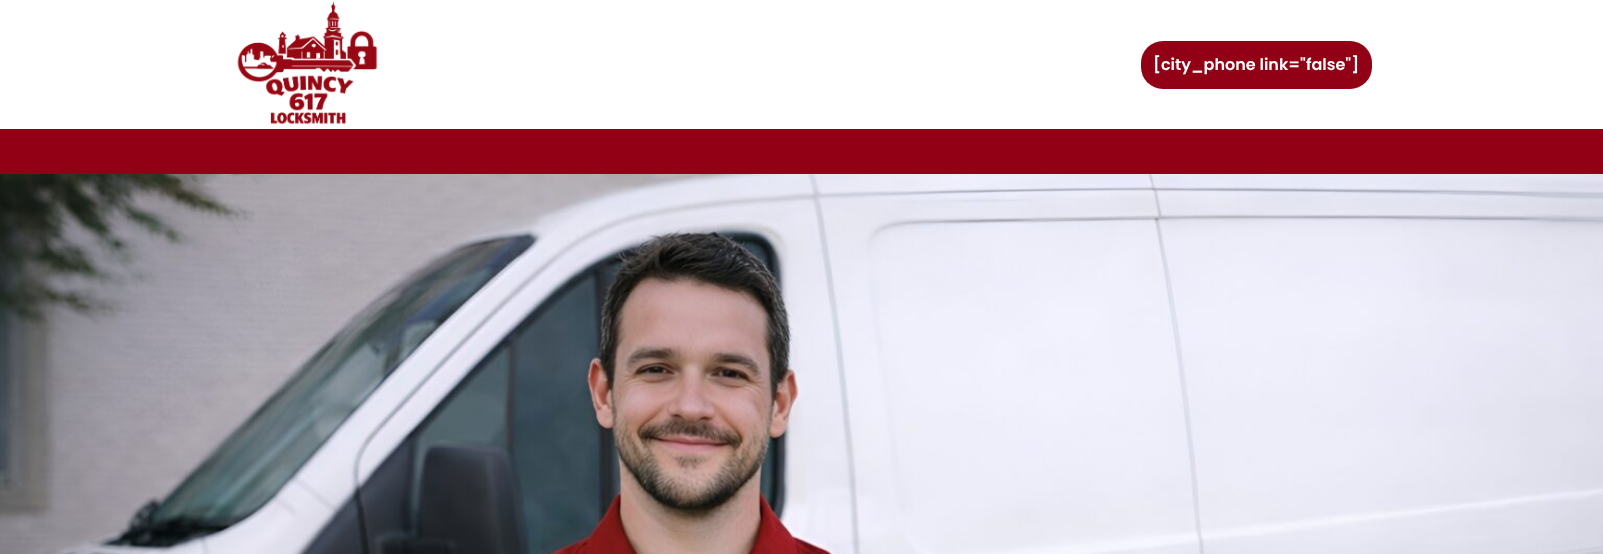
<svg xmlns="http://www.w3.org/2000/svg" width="1603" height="554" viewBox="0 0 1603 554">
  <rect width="100%" height="100%" fill="rgb(255,255,255)"/>
  <image x="237" y="1" width="141" height="124" href="pic1.png"/>
  <rect x="1141" y="41" width="231" height="48" rx="22" fill="rgb(146,0,21)"/>
  <text x="1153" y="70" font-family="Poppins" font-size="16" font-weight="600" fill="rgb(255,255,255)">[city_phone link="false"]</text>
  <rect x="0" y="129" width="1603" height="45" fill="rgb(146,0,21)"/>
  <image x="0" y="174" width="1603" height="380" href="pic2.png"/>
</svg>
